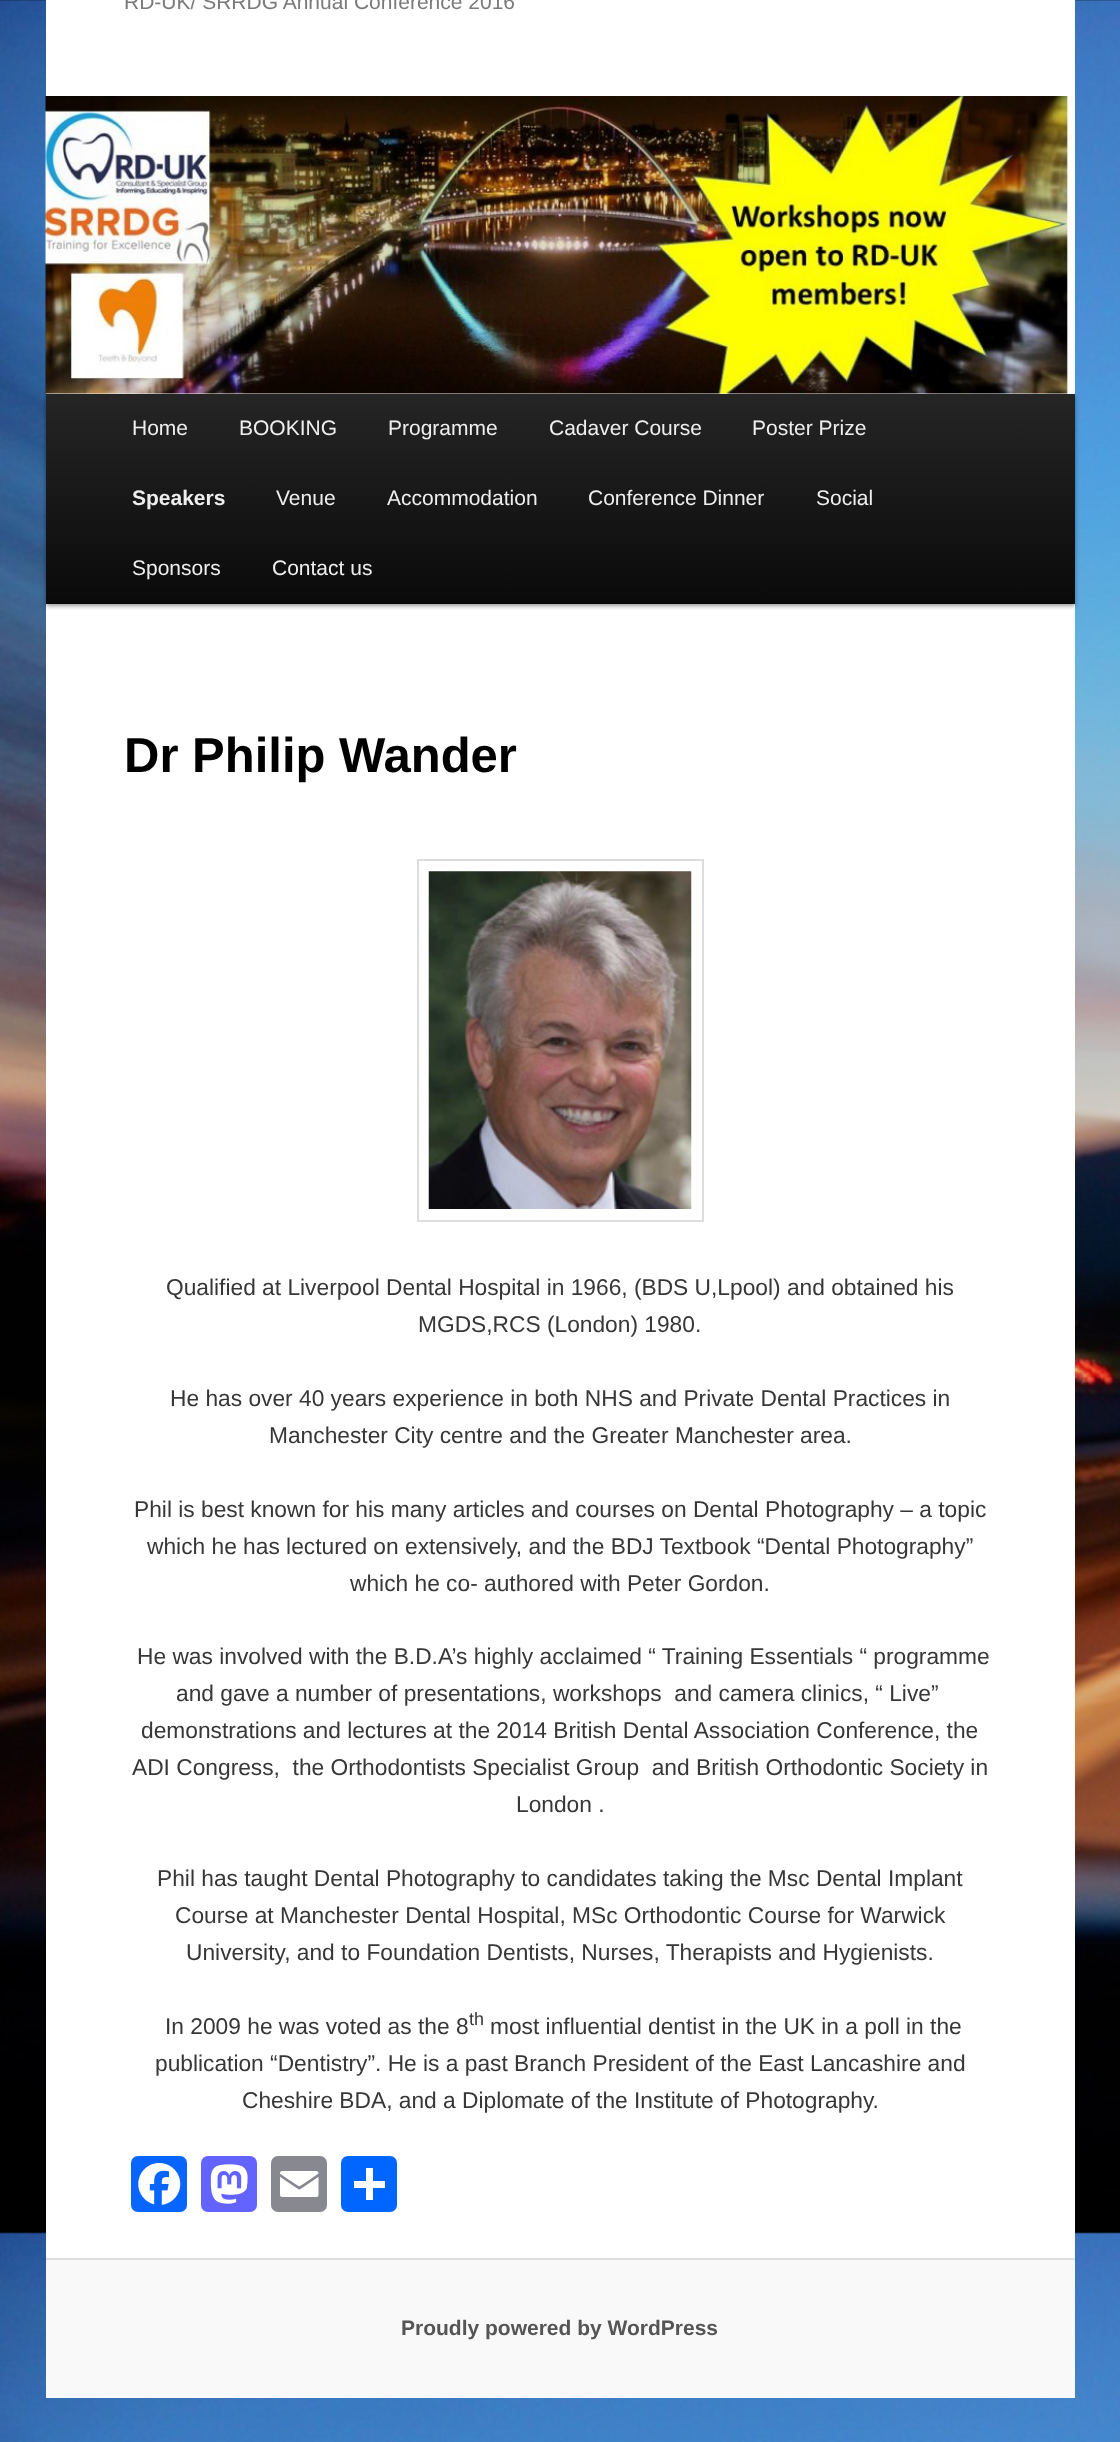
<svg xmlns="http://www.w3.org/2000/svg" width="1120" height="2442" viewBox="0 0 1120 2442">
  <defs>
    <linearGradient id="g1" gradientUnits="userSpaceOnUse" x1="560" y1="394" x2="560" y2="604"><stop offset="0" stop-color="rgb(37,37,37)"/><stop offset="1" stop-color="rgb(10,10,10)"/></linearGradient>
  </defs>
  <rect width="100%" height="100%" fill="rgb(255,255,255)"/>
  <image x="0" y="0" width="1120" height="2442" href="pic1.png"/>
  <rect x="46" y="0" width="1029" height="2258" fill="rgb(255,255,255)"/>
  <text x="124" y="9" font-family="Liberation Sans" font-size="21" fill="rgb(122,122,122)">RD-UK/ SRRDG Annual Conference 2016</text>
  <rect x="46" y="396" width="1029" height="210" fill="rgba(0,0,0,0.4)" filter="blur(2px)"/>
  <image x="45" y="96" width="1030" height="298" href="pic2.png"/>
  <rect x="46" y="394" width="1029" height="210" fill="url(#g1)"/>
  <g font-family="Liberation Sans" font-size="21" fill="rgb(238,238,238)">
    <text x="132" y="435">Home</text>
    <text x="239" y="435">BOOKING</text>
    <text x="388" y="435">Programme</text>
    <text x="549" y="435">Cadaver Course</text>
    <text x="752" y="435">Poster Prize</text>
  </g>
  <text x="132" y="505" font-family="Liberation Sans" font-size="21" font-weight="bold" fill="rgb(238,238,238)">Speakers</text>
  <g font-family="Liberation Sans" font-size="21" fill="rgb(238,238,238)">
    <text x="276" y="505">Venue</text>
    <text x="387" y="505">Accommodation</text>
    <text x="588" y="505">Conference Dinner</text>
    <text x="816" y="505">Social</text>
    <text x="132" y="575">Sponsors</text>
    <text x="272" y="575">Contact us</text>
  </g>
  <text x="124" y="772" font-family="Liberation Sans" font-size="49" font-weight="bold" fill="rgb(0,0,0)">Dr Philip Wander</text>
  <rect x="418" y="860" width="285" height="361" fill="none" stroke="rgb(221,221,221)" stroke-width="2"/>
  <image x="428" y="871" width="264" height="338" href="pic3.png"/>
  <g font-family="Liberation Sans" font-size="22.75" fill="rgb(55,55,55)">
    <text x="166" y="1295">Qualified at Liverpool Dental Hospital in 1966, (BDS U,Lpool) and obtained his</text>
    <text x="418" y="1332">MGDS,RCS (London) 1980.</text>
    <text x="170" y="1406">He has over 40 years experience in both NHS and Private Dental Practices in</text>
    <text x="269" y="1443">Manchester City centre and the Greater Manchester area.</text>
    <text x="134" y="1517">Phil is best known for his many articles and courses on Dental Photography – a topic</text>
    <text x="147" y="1554">which he has lectured on extensively, and the BDJ Textbook “Dental Photography”</text>
    <text x="350" y="1591">which he co- authored with Peter Gordon.</text>
    <text x="137" y="1664">He was involved with the B.D.A’s highly acclaimed “ Training Essentials “ programme</text>
    <text x="176" y="1701" xml:space="preserve">and gave a number of presentations, workshops  and camera clinics, “ Live”</text>
    <text x="141" y="1738">demonstrations and lectures at the 2014 British Dental Association Conference, the</text>
    <text x="132" y="1775" xml:space="preserve">ADI Congress,  the Orthodontists Specialist Group  and British Orthodontic Society in</text>
    <text x="516" y="1812">London .</text>
    <text x="157" y="1886">Phil has taught Dental Photography to candidates taking the Msc Dental Implant</text>
    <text x="175" y="1923">Course at Manchester Dental Hospital, MSc Orthodontic Course for Warwick</text>
    <text x="186" y="1960">University, and to Foundation Dentists, Nurses, Therapists and Hygienists.</text>
    <text x="165" y="2034">In 2009 he was voted as the 8</text>
  </g>
  <text x="469" y="2025" font-family="Liberation Sans" font-size="18" fill="rgb(55,55,55)">th</text>
  <g font-family="Liberation Sans" font-size="22.75" fill="rgb(55,55,55)">
    <text x="490" y="2034">most influential dentist in the UK in a poll in the</text>
    <text x="155" y="2071">publication “Dentistry”. He is a past Branch President of the East Lancashire and</text>
    <text x="242" y="2108">Cheshire BDA, and a Diplomate of the Institute of Photography.</text>
  </g>
  <rect x="131" y="2156" width="56" height="56" rx="7" fill="rgb(8,102,255)"/>
  <image x="138" y="2163" width="43" height="42" href="pic4.png"/>
  <rect x="201" y="2156" width="56" height="56" rx="7" fill="rgb(99,100,255)"/>
  <image x="210" y="2164" width="38" height="40" href="pic5.png"/>
  <rect x="271" y="2156" width="56" height="56" rx="7" fill="rgb(136,137,144)"/>
  <image x="280" y="2171" width="39" height="26" href="pic6.png"/>
  <rect x="341" y="2156" width="56" height="56" rx="7" fill="rgb(1,102,255)"/>
  <rect x="366" y="2168" width="7" height="32" fill="rgb(255,255,255)"/>
  <rect x="354" y="2181" width="31" height="7" fill="rgb(255,255,255)"/>
  <rect x="46" y="2260" width="1029" height="138" fill="rgb(249,249,249)"/>
  <rect x="46" y="2258" width="1029" height="2" fill="rgb(221,221,221)"/>
  <text x="401" y="2335" font-family="Liberation Sans" font-size="21" font-weight="bold" fill="rgb(85,85,85)">Proudly powered by WordPress</text>
</svg>
